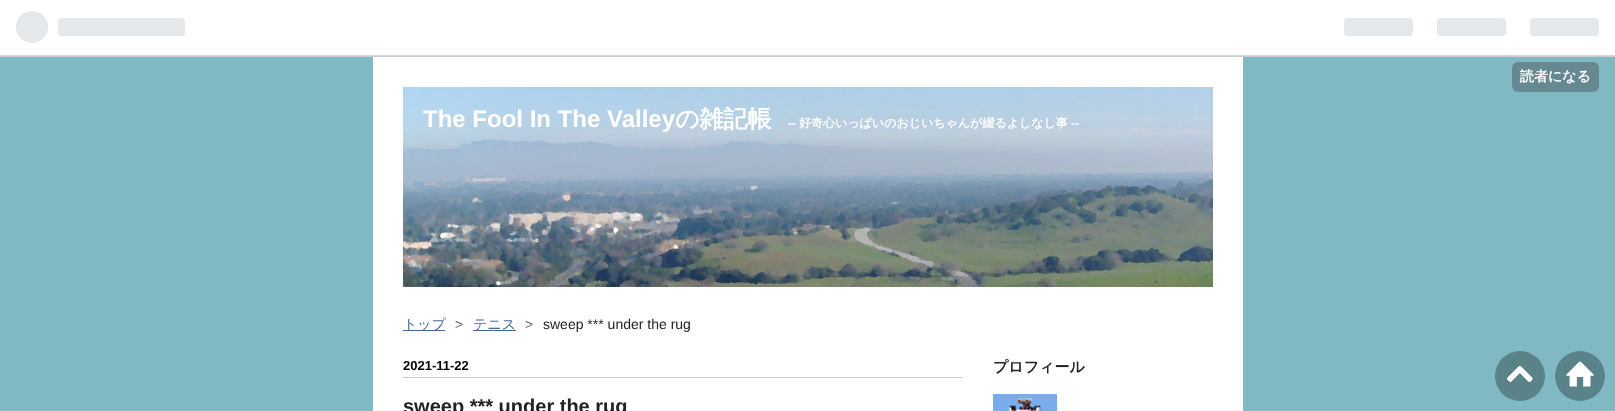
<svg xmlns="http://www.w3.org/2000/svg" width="1615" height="411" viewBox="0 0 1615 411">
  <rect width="100%" height="100%" fill="rgb(129,185,195)"/>
  <rect x="0" y="0" width="1615" height="55" fill="rgb(255,255,255)"/>
  <rect x="0" y="55" width="1615" height="1" fill="rgb(210,216,221)"/>
  <rect x="0" y="56" width="1615" height="1" fill="rgb(204,204,204)"/>
  <image x="16" y="11" width="169" height="32" href="pic1.png"/>
  <image x="1344" y="18" width="255" height="18" href="pic2.png"/>
  <rect x="1512" y="62" width="87" height="30" rx="6" fill="rgb(102,137,145)"/>
  <text x="1520" y="81" font-family="WenQuanYi Zen Hei" font-size="14" font-weight="bold" fill="rgb(255,255,255)">読者になる</text>
  <rect x="373" y="57" width="870" height="354" fill="rgb(255,255,255)"/>
  <image x="403" y="87" width="810" height="200" href="pic3.png"/>
  <text x="423" y="127" font-family="Liberation Sans" font-size="24" font-weight="bold" fill="rgb(255,255,255)">The Fool In The Valley</text>
  <text x="675" y="127" font-family="WenQuanYi Zen Hei" font-size="24" font-weight="bold" fill="rgb(255,255,255)">の雑記帳</text>
  <text x="788" y="127" font-family="Liberation Sans" font-size="12" font-weight="bold" fill="rgb(255,255,255)">--</text>
  <text x="799" y="127" font-family="WenQuanYi Zen Hei" font-size="12" font-weight="bold" fill="rgb(255,255,255)">好奇心いっぱいのおじいちゃんが綴るよしなし事</text>
  <text x="1071" y="127" font-family="Liberation Sans" font-size="12" font-weight="bold" fill="rgb(255,255,255)">--</text>
  <rect x="403" y="330" width="42" height="1" fill="rgb(69,104,152)"/>
  <text x="403" y="329" font-family="WenQuanYi Zen Hei" font-size="14" font-weight="500" fill="rgb(69,104,152)">トップ</text>
  <text x="455" y="329" font-family="Liberation Sans" font-size="14" fill="rgb(100,100,100)">&gt;</text>
  <rect x="473" y="330" width="43" height="1" fill="rgb(69,104,152)"/>
  <text x="473" y="329" font-family="WenQuanYi Zen Hei" font-size="14" font-weight="500" fill="rgb(69,104,152)">テニス</text>
  <text x="525" y="329" font-family="Liberation Sans" font-size="14" fill="rgb(100,100,100)">&gt;</text>
  <text x="543" y="329" font-family="Liberation Sans" font-size="14" fill="rgb(34,34,34)">sweep *** under the rug</text>
  <rect x="403" y="377" width="560" height="1" fill="rgb(204,204,204)"/>
  <text x="403" y="370" font-family="Liberation Sans" font-size="13" font-weight="bold" fill="rgb(0,0,0)">2021-11-22</text>
  <text x="403" y="413" font-family="Liberation Sans" font-size="20" font-weight="bold" fill="rgb(34,34,34)">sweep *** under the rug</text>
  <text x="993" y="372" font-family="WenQuanYi Zen Hei" font-size="15" font-weight="bold" fill="rgb(34,34,34)">プロフィール</text>
  <image x="993" y="394" width="64" height="17" href="pic4.png"/>
  <circle cx="1520" cy="376" r="25" fill="rgb(90,130,137)"/>
  <image x="1507" y="365" width="26" height="17" href="pic5.png"/>
  <circle cx="1580" cy="376" r="25" fill="rgb(90,130,137)"/>
  <image x="1566" y="361" width="28" height="26" href="pic6.png"/>
</svg>
